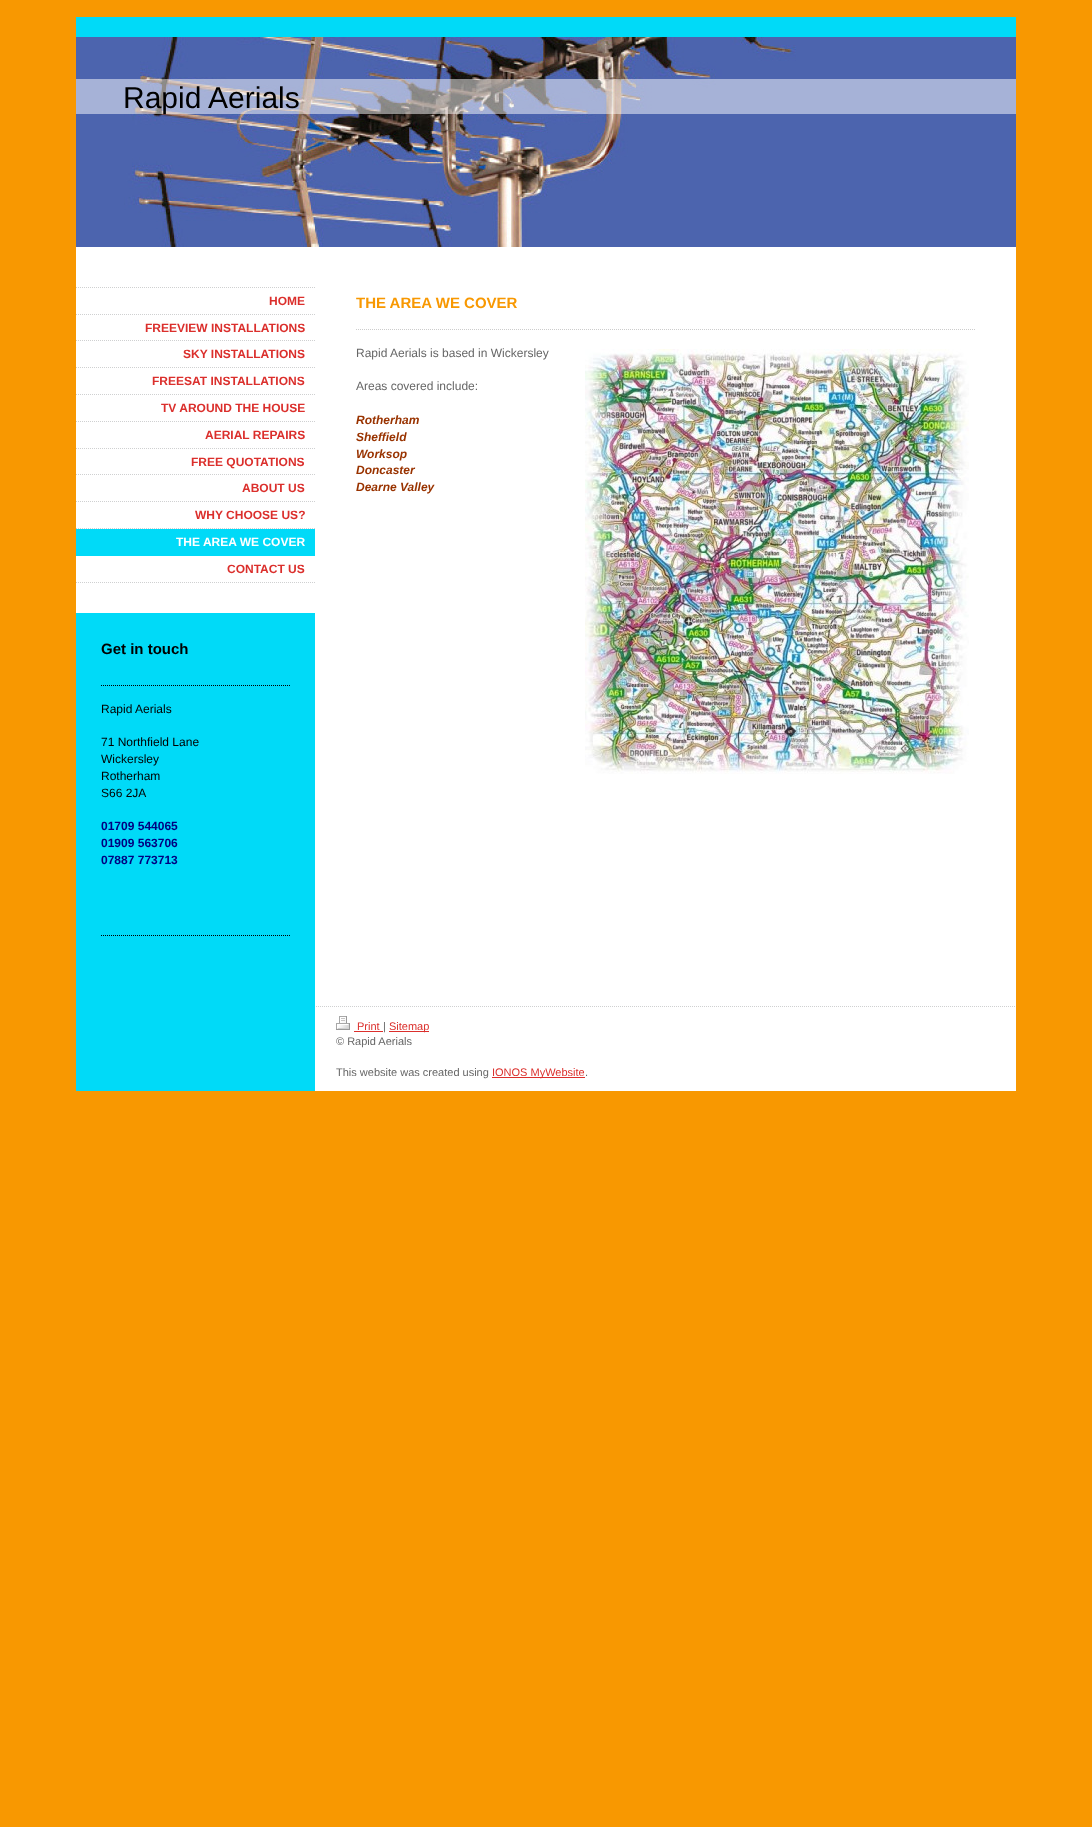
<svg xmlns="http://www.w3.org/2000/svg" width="1092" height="1827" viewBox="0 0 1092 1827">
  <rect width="100%" height="100%" fill="rgb(248,152,1)"/>
  <rect x="76" y="529" width="239" height="562" fill="rgb(0,218,248)"/>
  <rect x="315" y="287" width="701" height="804" fill="rgb(255,255,255)"/>
  <rect x="76" y="247" width="940" height="40" fill="rgb(255,255,255)"/>
  <rect x="76" y="17" width="940" height="20" fill="rgb(0,218,248)"/>
  <image x="76" y="37" width="940" height="210" href="pic1.png"/>
  <rect x="76" y="79" width="940" height="35" fill="rgba(255,255,255,0.5)"/>
  <text x="123" y="108" font-family="Liberation Sans" font-size="30" fill="rgb(0,0,0)">Rapid Aerials</text>
  <rect x="76" y="583" width="239" height="30" fill="rgb(255,255,255)"/>
  <image x="76" y="287" width="239" height="1" href="pic2.png"/>
  <rect x="76" y="288" width="239" height="26" fill="rgb(255,255,255)"/>
  <image x="76" y="314" width="239" height="1" href="pic2.png"/>
  <text x="269" y="305" font-family="Liberation Sans" font-size="12" font-weight="bold" fill="rgb(219,47,44)">HOME</text>
  <rect x="76" y="315" width="239" height="25" fill="rgb(255,255,255)"/>
  <image x="76" y="340" width="239" height="1" href="pic2.png"/>
  <text x="145" y="332" font-family="Liberation Sans" font-size="12" font-weight="bold" fill="rgb(219,47,44)">FREEVIEW INSTALLATIONS</text>
  <rect x="76" y="341" width="239" height="26" fill="rgb(255,255,255)"/>
  <image x="76" y="367" width="239" height="1" href="pic2.png"/>
  <text x="183" y="358" font-family="Liberation Sans" font-size="12" font-weight="bold" fill="rgb(219,47,44)">SKY INSTALLATIONS</text>
  <rect x="76" y="368" width="239" height="26" fill="rgb(255,255,255)"/>
  <image x="76" y="394" width="239" height="1" href="pic2.png"/>
  <text x="152" y="385" font-family="Liberation Sans" font-size="12" font-weight="bold" fill="rgb(219,47,44)">FREESAT INSTALLATIONS</text>
  <rect x="76" y="395" width="239" height="26" fill="rgb(255,255,255)"/>
  <image x="76" y="421" width="239" height="1" href="pic2.png"/>
  <text x="161" y="412" font-family="Liberation Sans" font-size="12" font-weight="bold" fill="rgb(219,47,44)">TV AROUND THE HOUSE</text>
  <rect x="76" y="422" width="239" height="26" fill="rgb(255,255,255)"/>
  <image x="76" y="448" width="239" height="1" href="pic2.png"/>
  <text x="205" y="439" font-family="Liberation Sans" font-size="12" font-weight="bold" fill="rgb(219,47,44)">AERIAL REPAIRS</text>
  <rect x="76" y="449" width="239" height="25" fill="rgb(255,255,255)"/>
  <image x="76" y="474" width="239" height="1" href="pic2.png"/>
  <text x="191" y="466" font-family="Liberation Sans" font-size="12" font-weight="bold" fill="rgb(219,47,44)">FREE QUOTATIONS</text>
  <rect x="76" y="475" width="239" height="26" fill="rgb(255,255,255)"/>
  <image x="76" y="501" width="239" height="1" href="pic2.png"/>
  <text x="242" y="492" font-family="Liberation Sans" font-size="12" font-weight="bold" fill="rgb(219,47,44)">ABOUT US</text>
  <rect x="76" y="502" width="239" height="26" fill="rgb(255,255,255)"/>
  <image x="76" y="528" width="239" height="1" href="pic2.png"/>
  <text x="195" y="519" font-family="Liberation Sans" font-size="12" font-weight="bold" fill="rgb(219,47,44)">WHY CHOOSE US?</text>
  <text x="176" y="546" font-family="Liberation Sans" font-size="12" font-weight="bold" fill="rgb(255,255,255)">THE AREA WE COVER</text>
  <rect x="76" y="556" width="239" height="26" fill="rgb(255,255,255)"/>
  <image x="76" y="582" width="239" height="1" href="pic2.png"/>
  <text x="227" y="573" font-family="Liberation Sans" font-size="12" font-weight="bold" fill="rgb(219,47,44)">CONTACT US</text>
  <text x="101" y="654" font-family="Liberation Sans" font-size="15" font-weight="bold" fill="rgb(0,0,0)">Get in touch</text>
  <path d="M101 685.5H290" fill="none" stroke="rgb(0,0,0)" stroke-dasharray="1 1"/>
  <g font-family="Liberation Sans" font-size="12" fill="rgb(0,0,0)">
    <text x="101" y="713">Rapid Aerials</text>
    <text>
      <tspan x="101" y="746">71 Northfield Lane</tspan>
      <tspan x="101" y="763">Wickersley</tspan>
      <tspan x="101" y="780">Rotherham</tspan>
      <tspan x="101" y="797">S66 2JA</tspan>
    </text>
  </g>
  <g font-family="Liberation Sans" font-size="12" font-weight="bold" fill="rgb(0,0,128)">
    <text>
      <tspan x="101" y="830">01709 544065</tspan>
      <tspan x="101" y="847">01909 563706</tspan>
      <tspan x="101" y="864">07887 773713</tspan>
    </text>
  </g>
  <path d="M101 935.5H290" fill="none" stroke="rgb(0,0,0)" stroke-dasharray="1 1"/>
  <text x="356" y="308" font-family="Liberation Sans" font-size="15" font-weight="bold" fill="rgb(248,152,1)">THE AREA WE COVER</text>
  <path d="M356 329.5H976" fill="none" stroke="rgb(204,204,204)" stroke-dasharray="1 1"/>
  <g font-family="Liberation Sans" font-size="12" fill="rgb(102,102,102)">
    <text x="356" y="357">Rapid Aerials is based in Wickersley</text>
    <text x="356" y="390">Areas covered include:</text>
  </g>
  <g font-family="Liberation Sans" font-size="12" font-weight="bold" font-style="italic" fill="rgb(153,51,0)">
    <text>
      <tspan x="356" y="424">Rotherham</tspan>
      <tspan x="356" y="441">Sheffield</tspan>
      <tspan x="356" y="458">Worksop</tspan>
      <tspan x="356" y="474">Doncaster</tspan>
      <tspan x="356" y="491">Dearne Valley</tspan>
    </text>
  </g>
  <image x="585" y="349" width="384" height="425" href="pic3.png"/>
  <image x="316" y="1006" width="699" height="1" href="pic4.png"/>
  <image x="336" y="1016" width="14" height="14" href="pic5.png"/>
  <text x="357" y="1030" font-family="Liberation Sans" font-size="11" fill="rgb(219,47,44)">Print</text>
  <rect x="354" y="1031" width="29" height="1" fill="rgb(219,47,44)"/>
  <text x="383" y="1030" font-family="Liberation Sans" font-size="11" fill="rgb(102,102,102)">|</text>
  <rect x="389" y="1031" width="40" height="1" fill="rgb(219,47,44)"/>
  <text x="389" y="1030" font-family="Liberation Sans" font-size="11" fill="rgb(219,47,44)">Sitemap</text>
  <g font-family="Liberation Sans" font-size="11" fill="rgb(102,102,102)">
    <text x="336" y="1045">© Rapid Aerials</text>
    <text x="336" y="1076">This website was created using</text>
  </g>
  <rect x="492" y="1077" width="93" height="1" fill="rgb(219,47,44)"/>
  <text x="492" y="1076" font-family="Liberation Sans" font-size="11" fill="rgb(219,47,44)">IONOS MyWebsite</text>
  <text x="585" y="1076" font-family="Liberation Sans" font-size="11" fill="rgb(102,102,102)">.</text>
</svg>
